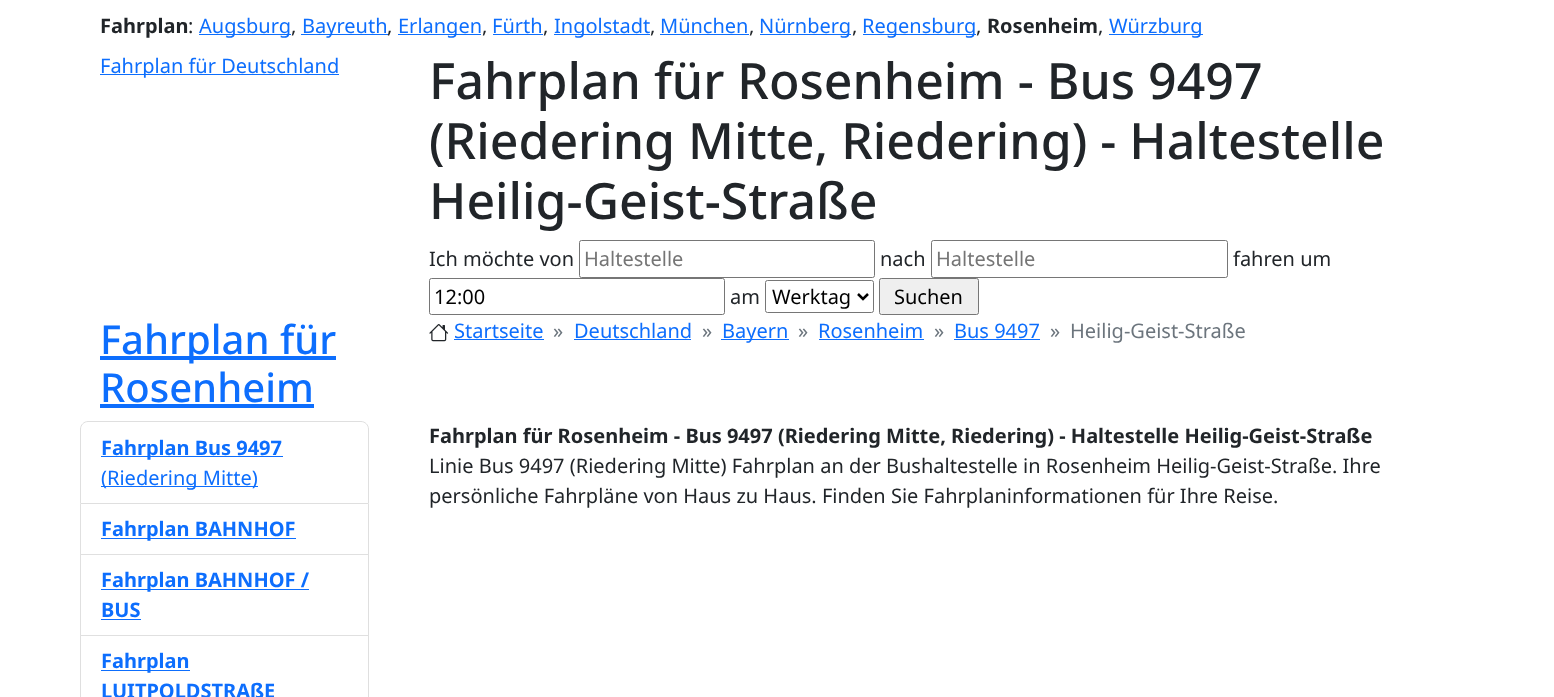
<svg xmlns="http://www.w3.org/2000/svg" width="1554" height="697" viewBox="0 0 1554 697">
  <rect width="100%" height="100%" fill="rgb(255,255,255)"/>
  <text x="100" y="33" font-family="Noto Sans" font-size="20" font-weight="bold" fill="rgb(33,37,41)">Fahrplan</text>
  <text x="188" y="33" font-family="Noto Sans" font-size="20" fill="rgb(33,37,41)">:</text>
  <rect x="199" y="34" width="92" height="1" fill="rgb(13,110,253)"/>
  <text x="199" y="33" font-family="Noto Sans" font-size="20" fill="rgb(13,110,253)">Augsburg</text>
  <text x="291" y="33" font-family="Noto Sans" font-size="20" fill="rgb(33,37,41)">,</text>
  <rect x="301" y="34" width="87" height="1" fill="rgb(13,110,253)"/>
  <text x="302" y="33" font-family="Noto Sans" font-size="20" fill="rgb(13,110,253)">Bayreuth</text>
  <text x="387" y="33" font-family="Noto Sans" font-size="20" fill="rgb(33,37,41)">,</text>
  <rect x="398" y="34" width="83" height="1" fill="rgb(13,110,253)"/>
  <text x="398" y="33" font-family="Noto Sans" font-size="20" fill="rgb(13,110,253)">Erlangen</text>
  <text x="482" y="33" font-family="Noto Sans" font-size="20" fill="rgb(33,37,41)">,</text>
  <text x="492" y="33" font-family="Noto Sans" font-size="20" fill="rgb(13,110,253)">Fürth</text>
  <rect x="493" y="34" width="50" height="1" fill="rgb(13,110,253)"/>
  <text x="543" y="33" font-family="Noto Sans" font-size="20" fill="rgb(33,37,41)">,</text>
  <rect x="554" y="34" width="96" height="1" fill="rgb(13,110,253)"/>
  <text x="554" y="33" font-family="Noto Sans" font-size="20" fill="rgb(13,110,253)">Ingolstadt</text>
  <text x="650" y="33" font-family="Noto Sans" font-size="20" fill="rgb(33,37,41)">,</text>
  <text x="660" y="33" font-family="Noto Sans" font-size="20" fill="rgb(13,110,253)">München</text>
  <rect x="660" y="34" width="89" height="1" fill="rgb(13,110,253)"/>
  <text x="749" y="33" font-family="Noto Sans" font-size="20" fill="rgb(33,37,41)">,</text>
  <rect x="760" y="34" width="91" height="1" fill="rgb(13,110,253)"/>
  <text x="759" y="33" font-family="Noto Sans" font-size="20" fill="rgb(13,110,253)">Nürnberg</text>
  <text x="852" y="33" font-family="Noto Sans" font-size="20" fill="rgb(33,37,41)">,</text>
  <rect x="863" y="34" width="113" height="1" fill="rgb(13,110,253)"/>
  <text x="862" y="33" font-family="Noto Sans" font-size="20" fill="rgb(13,110,253)">Regensburg</text>
  <text x="976" y="33" font-family="Noto Sans" font-size="20" fill="rgb(33,37,41)">,</text>
  <text x="987" y="33" font-family="Noto Sans" font-size="20" font-weight="bold" fill="rgb(33,37,41)">Rosenheim</text>
  <text x="1098" y="33" font-family="Noto Sans" font-size="20" fill="rgb(33,37,41)">,</text>
  <rect x="1109" y="34" width="94" height="1" fill="rgb(13,110,253)"/>
  <text x="1109" y="33" font-family="Noto Sans" font-size="20" fill="rgb(13,110,253)">Würzburg</text>
  <rect x="100" y="74" width="239" height="1" fill="rgb(13,110,253)"/>
  <text x="100" y="73" font-family="Noto Sans" font-size="20" fill="rgb(13,110,253)">Fahrplan für Deutschland</text>
  <g font-family="Noto Sans" font-size="50" font-weight="500" fill="rgb(33,37,41)">
    <text>
      <tspan x="429" y="99">Fahrplan für Rosenheim - Bus 9497</tspan>
      <tspan x="429" y="159">(Riedering Mitte, Riedering) - Haltestelle</tspan>
      <tspan x="429" y="219">Heilig-Geist-Straße</tspan>
    </text>
  </g>
  <text x="429" y="266" font-family="Noto Sans" font-size="20" fill="rgb(33,37,41)">Ich möchte von</text>
  <rect x="579.5" y="240.5" width="295" height="37" rx="2" fill="none" stroke="rgb(118,118,118)"/>
  <text x="584" y="266" font-family="Noto Sans" font-size="20" fill="rgb(117,117,117)">Haltestelle</text>
  <text x="880" y="266" font-family="Noto Sans" font-size="20" fill="rgb(33,37,41)">nach</text>
  <rect x="931.5" y="240.5" width="296" height="37" rx="2" fill="none" stroke="rgb(118,118,118)"/>
  <text x="936" y="266" font-family="Noto Sans" font-size="20" fill="rgb(117,117,117)">Haltestelle</text>
  <text x="1233" y="266" font-family="Noto Sans" font-size="20" fill="rgb(33,37,41)">fahren um</text>
  <rect x="429.5" y="278.5" width="295" height="36" rx="2" fill="none" stroke="rgb(118,118,118)"/>
  <text x="434" y="304" font-family="Noto Sans" font-size="20" fill="rgb(0,0,0)">12:00</text>
  <text x="730" y="304" font-family="Noto Sans" font-size="20" fill="rgb(33,37,41)">am</text>
  <rect x="765.5" y="280.5" width="108" height="32" rx="2" fill="none" stroke="rgb(118,118,118)"/>
  <path d="M858 294L863 299L868 294" fill="none" stroke="rgb(0,0,0)" stroke-width="2.5"/>
  <text x="772" y="304" font-family="Noto Sans" font-size="20" fill="rgb(0,0,0)">Werktag</text>
  <rect x="879.5" y="278.5" width="99" height="36" rx="2" fill="rgb(239,239,239)" stroke="rgb(118,118,118)"/>
  <text x="894" y="304" font-family="Noto Sans" font-size="20" fill="rgb(0,0,0)">Suchen</text>
  <rect x="100" y="356" width="236" height="4" fill="rgb(13,110,253)"/>
  <g font-family="Noto Sans" font-size="40" font-weight="500" fill="rgb(13,110,253)">
    <text>
      <tspan x="100" y="354">Fahrplan für</tspan>
      <tspan x="100" y="402">Rosenheim</tspan>
    </text>
  </g>
  <rect x="100" y="404" width="214" height="4" fill="rgb(13,110,253)"/>
  <image x="429" y="324" width="20" height="18" href="pic1.png"/>
  <text x="454" y="338" font-family="Noto Sans" font-size="20" fill="rgb(13,110,253)">Startseite</text>
  <rect x="454" y="339" width="90" height="1" fill="rgb(13,110,253)"/>
  <text x="553" y="338" font-family="Noto Sans" font-size="20" fill="rgb(108,117,125)">»</text>
  <text x="574" y="338" font-family="Noto Sans" font-size="20" fill="rgb(13,110,253)">Deutschland</text>
  <rect x="574" y="339" width="117" height="1" fill="rgb(13,110,253)"/>
  <text x="702" y="338" font-family="Noto Sans" font-size="20" fill="rgb(108,117,125)">»</text>
  <rect x="721" y="339" width="68" height="1" fill="rgb(13,110,253)"/>
  <text x="722" y="338" font-family="Noto Sans" font-size="20" fill="rgb(13,110,253)">Bayern</text>
  <text x="798" y="338" font-family="Noto Sans" font-size="20" fill="rgb(108,117,125)">»</text>
  <text x="818" y="338" font-family="Noto Sans" font-size="20" fill="rgb(13,110,253)">Rosenheim</text>
  <rect x="819" y="339" width="105" height="1" fill="rgb(13,110,253)"/>
  <text x="934" y="338" font-family="Noto Sans" font-size="20" fill="rgb(108,117,125)">»</text>
  <text x="954" y="338" font-family="Noto Sans" font-size="20" fill="rgb(13,110,253)">Bus 9497</text>
  <rect x="954" y="339" width="86" height="1" fill="rgb(13,110,253)"/>
  <g font-family="Noto Sans" font-size="20" fill="rgb(108,117,125)">
    <text x="1050" y="338">»</text>
    <text x="1070" y="338">Heilig-Geist-Straße</text>
  </g>
  <path d="M88 421.5H361C365 421.5 368.5 425 368.5 429V503.5H80.5V429C80.5 425 84 421.5 88 421.5Z" fill="none" stroke="rgb(223,223,223)"/>
  <rect x="101" y="456" width="182" height="1" fill="rgb(13,110,253)"/>
  <text x="101" y="455" font-family="Noto Sans" font-size="20" font-weight="bold" fill="rgb(13,110,253)">Fahrplan Bus 9497</text>
  <rect x="101" y="486" width="157" height="1" fill="rgb(13,110,253)"/>
  <text x="101" y="485" font-family="Noto Sans" font-size="20" fill="rgb(13,110,253)">(Riedering Mitte)</text>
  <path d="M369 504V555L368 554V504Z" fill="rgb(223,223,223)"/>
  <path d="M369 555H80L81 554H368Z" fill="rgba(0,0,0,0.12)"/>
  <path d="M80 555V504H81V554Z" fill="rgba(0,0,0,0.12)"/>
  <rect x="101" y="538" width="195" height="1" fill="rgb(13,110,253)"/>
  <text x="101" y="536" font-family="Noto Sans" font-size="20" font-weight="bold" fill="rgb(13,110,253)">Fahrplan BAHNHOF</text>
  <path d="M369 555V636L368 635V555Z" fill="rgb(223,223,223)"/>
  <path d="M369 636H80L81 635H368Z" fill="rgba(0,0,0,0.12)"/>
  <path d="M80 636V555H81V635Z" fill="rgba(0,0,0,0.12)"/>
  <rect x="101" y="589" width="208" height="1" fill="rgb(13,110,253)"/>
  <g font-family="Noto Sans" font-size="20" font-weight="bold" fill="rgb(13,110,253)">
    <text>
      <tspan x="101" y="587">Fahrplan BAHNHOF /</tspan>
      <tspan x="101" y="617">BUS</tspan>
    </text>
  </g>
  <rect x="101" y="619" width="40" height="1" fill="rgb(13,110,253)"/>
  <path d="M369 636V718L368 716V636Z" fill="rgb(223,223,223)"/>
  <path d="M80 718V636H81V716Z" fill="rgb(223,223,223)"/>
  <rect x="101" y="670" width="89" height="1" fill="rgb(13,110,253)"/>
  <g font-family="Noto Sans" font-size="20" font-weight="bold" fill="rgb(13,110,253)">
    <text>
      <tspan x="101" y="668">Fahrplan</tspan>
      <tspan x="101" y="698">LUITPOLDSTRAßE</tspan>
    </text>
  </g>
  <text x="429" y="443" font-family="Noto Sans" font-size="20" font-weight="bold" fill="rgb(33,37,41)">Fahrplan für Rosenheim - Bus 9497 (Riedering Mitte, Riedering) - Haltestelle Heilig-Geist-Straße</text>
  <g font-family="Noto Sans" font-size="20" fill="rgb(33,37,41)">
    <text>
      <tspan x="429" y="473">Linie Bus 9497 (Riedering Mitte) Fahrplan an der Bushaltestelle in Rosenheim Heilig-Geist-Straße. Ihre</tspan>
      <tspan x="429" y="503">persönliche Fahrpläne von Haus zu Haus. Finden Sie Fahrplaninformationen für Ihre Reise.</tspan>
    </text>
  </g>
</svg>
